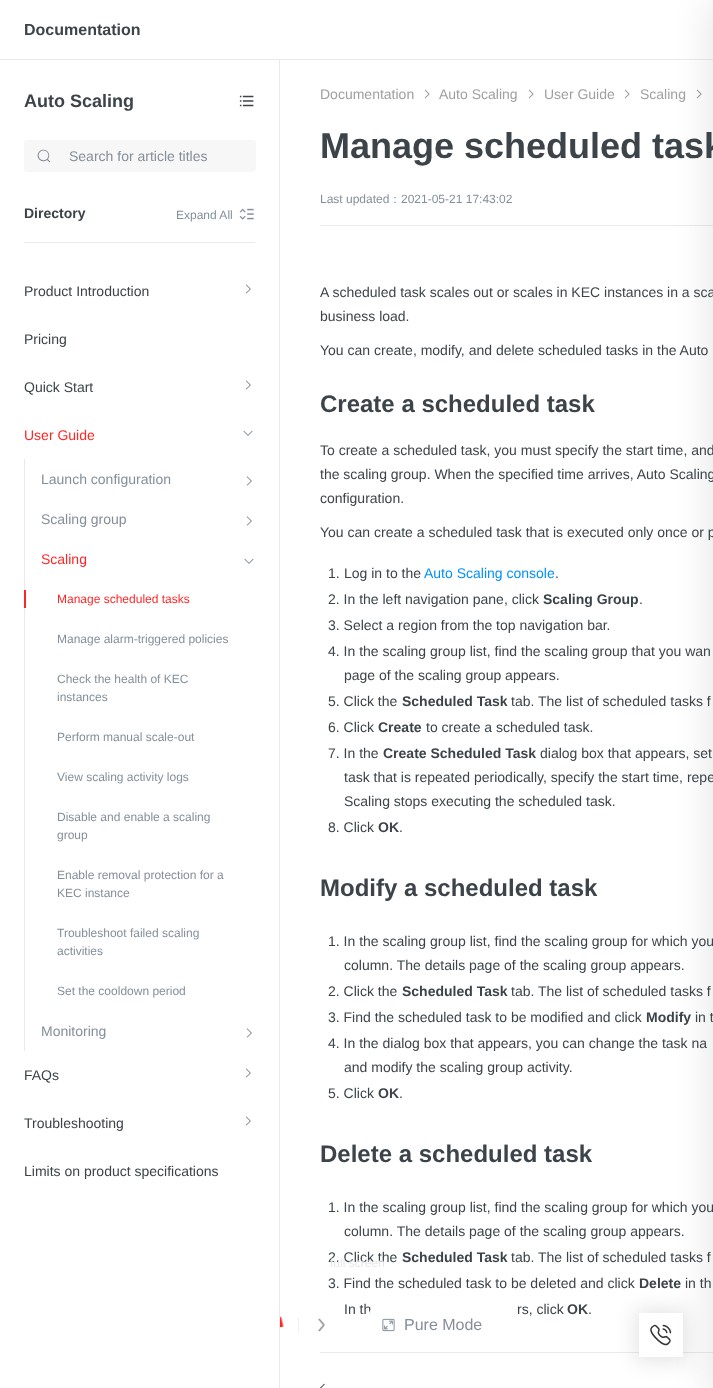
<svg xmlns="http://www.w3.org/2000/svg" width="713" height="1388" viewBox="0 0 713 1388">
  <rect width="100%" height="100%" fill="rgb(255,255,255)"/>
  <rect x="0" y="59" width="713" height="1" fill="rgb(234,234,234)"/>
  <text x="24" y="35" font-family="Liberation Sans" font-size="16" font-weight="bold" fill="rgb(60,68,73)">Documentation</text>
  <image x="696" y="89" width="6" height="10" href="pic6.png"/>
  <rect x="320" y="225" width="393" height="1" fill="rgb(234,234,234)"/>
  <rect x="320" y="1352" width="393" height="1" fill="rgb(234,234,234)"/>
  <rect x="635" y="1309" width="52" height="53" fill="rgba(0,0,0,0.1)" filter="blur(10px)"/>
  <rect x="639" y="1357" width="44" height="1" fill="rgb(238,238,238)"/>
  <rect x="639" y="1313" width="44" height="44" fill="rgb(255,255,255)"/>
  <image x="650" y="1324" width="22" height="22" href="pic11.png"/>
  <rect x="705" y="0" width="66" height="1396" rx="10" fill="rgba(0,0,0,0.08)" filter="blur(16px)"/>
  <rect x="279" y="60" width="1" height="1328" fill="rgb(234,234,234)"/>
  <text x="24" y="107" font-family="Liberation Sans" font-size="18" font-weight="bold" fill="rgb(60,68,73)">Auto Scaling</text>
  <image x="239" y="95" width="15" height="12" href="pic1.png"/>
  <rect x="24" y="140" width="232" height="32" rx="4" fill="rgb(247,247,247)"/>
  <image x="37" y="149" width="14" height="14" href="pic2.png"/>
  <text x="69" y="161" font-family="Liberation Sans" font-size="14" fill="rgb(132,143,154)">Search for article titles</text>
  <rect x="24" y="242" width="231" height="1" fill="rgb(234,234,234)"/>
  <text x="24" y="218" font-family="Liberation Sans" font-size="14" font-weight="bold" fill="rgb(60,68,73)">Directory</text>
  <text x="176" y="219" font-family="Liberation Sans" font-size="12" fill="rgb(132,143,154)">Expand All</text>
  <image x="239" y="208" width="15" height="12" href="pic3.png"/>
  <text x="24" y="296" font-family="Liberation Sans" font-size="14" fill="rgb(60,68,73)">Product Introduction</text>
  <image x="245" y="284" width="6" height="10" href="pic4.png"/>
  <g font-family="Liberation Sans" font-size="14" fill="rgb(60,68,73)">
    <text x="24" y="344">Pricing</text>
    <text x="24" y="392">Quick Start</text>
  </g>
  <image x="245" y="380" width="6" height="10" href="pic4.png"/>
  <text x="24" y="440" font-family="Liberation Sans" font-size="14" fill="rgb(255,38,38)">User Guide</text>
  <image x="243" y="430" width="10" height="6" href="pic5.png"/>
  <rect x="24" y="459" width="1" height="592" fill="rgb(234,234,234)"/>
  <text x="41" y="484" font-family="Liberation Sans" font-size="14" fill="rgb(132,143,154)">Launch configuration</text>
  <image x="246" y="476" width="6" height="10" href="pic4.png"/>
  <text x="41" y="524" font-family="Liberation Sans" font-size="14" fill="rgb(132,143,154)">Scaling group</text>
  <image x="246" y="516" width="6" height="10" href="pic4.png"/>
  <text x="41" y="564" font-family="Liberation Sans" font-size="14" fill="rgb(255,38,38)">Scaling</text>
  <image x="244" y="558" width="10" height="6" href="pic5.png"/>
  <rect x="24" y="590" width="2" height="18" fill="rgb(255,38,38)"/>
  <text x="57" y="603" font-family="Liberation Sans" font-size="12" fill="rgb(255,38,38)">Manage scheduled tasks</text>
  <g font-family="Liberation Sans" font-size="12" fill="rgb(132,143,154)">
    <text x="57" y="643">Manage alarm-triggered policies</text>
    <text>
      <tspan x="57" y="683">Check the health of KEC</tspan>
      <tspan x="57" y="701">instances</tspan>
    </text>
    <text x="57" y="741">Perform manual scale-out</text>
    <text x="57" y="781">View scaling activity logs</text>
    <text>
      <tspan x="57" y="821">Disable and enable a scaling</tspan>
      <tspan x="57" y="839">group</tspan>
    </text>
    <text>
      <tspan x="57" y="879">Enable removal protection for a</tspan>
      <tspan x="57" y="897">KEC instance</tspan>
    </text>
    <text>
      <tspan x="57" y="937">Troubleshoot failed scaling</tspan>
      <tspan x="57" y="955">activities</tspan>
    </text>
    <text x="57" y="995">Set the cooldown period</text>
  </g>
  <text x="41" y="1036" font-family="Liberation Sans" font-size="14" fill="rgb(132,143,154)">Monitoring</text>
  <image x="246" y="1028" width="6" height="10" href="pic4.png"/>
  <text x="24" y="1080" font-family="Liberation Sans" font-size="14" fill="rgb(60,68,73)">FAQs</text>
  <image x="245" y="1068" width="6" height="10" href="pic4.png"/>
  <text x="24" y="1128" font-family="Liberation Sans" font-size="14" fill="rgb(60,68,73)">Troubleshooting</text>
  <image x="245" y="1116" width="6" height="10" href="pic4.png"/>
  <text x="24" y="1176" font-family="Liberation Sans" font-size="14" fill="rgb(60,68,73)">Limits on product specifications</text>
  <text x="320" y="99" font-family="Liberation Sans" font-size="14" fill="rgb(160,160,160)">Documentation</text>
  <image x="424" y="89" width="6" height="10" href="pic6.png"/>
  <text x="439" y="99" font-family="Liberation Sans" font-size="14" fill="rgb(160,160,160)">Auto Scaling</text>
  <image x="528" y="89" width="6" height="10" href="pic6.png"/>
  <text x="544" y="99" font-family="Liberation Sans" font-size="14" fill="rgb(160,160,160)">User Guide</text>
  <image x="624" y="89" width="6" height="10" href="pic6.png"/>
  <text x="640" y="99" font-family="Liberation Sans" font-size="14" fill="rgb(160,160,160)">Scaling</text>
  <text x="320" y="158" font-family="Liberation Sans" font-size="36" font-weight="bold" fill="rgb(60,68,73)">Manage scheduled task</text>
  <text x="320" y="203" font-family="Liberation Sans" font-size="12" fill="rgb(132,143,154)">Last updated</text>
  <text x="389" y="203" font-family="WenQuanYi Zen Hei" font-size="12" font-weight="500" fill="rgb(132,143,154)">：</text>
  <text x="401" y="203" font-family="Liberation Sans" font-size="12" fill="rgb(132,143,154)">2021-05-21 17:43:02</text>
  <g font-family="Liberation Sans" font-size="14" fill="rgb(60,68,73)">
    <text>
      <tspan x="320" y="297">A scheduled task scales out or scales in KEC instances in a sca</tspan>
      <tspan x="320" y="321">business load.</tspan>
    </text>
    <text x="320" y="355">You can create, modify, and delete scheduled tasks in the Auto</text>
  </g>
  <text x="320" y="412" font-family="Liberation Sans" font-size="24" font-weight="bold" fill="rgb(60,68,73)">Create a scheduled task</text>
  <g font-family="Liberation Sans" font-size="14" fill="rgb(60,68,73)">
    <text>
      <tspan x="320" y="455">To create a scheduled task, you must specify the start time, and</tspan>
      <tspan x="320" y="479">the scaling group. When the specified time arrives, Auto Scaling</tspan>
      <tspan x="320" y="503">configuration.</tspan>
    </text>
    <text x="320" y="537">You can create a scheduled task that is executed only once or p</text>
    <text x="328" y="578">1.</text>
    <text x="344" y="578">Log in to the</text>
  </g>
  <text x="424" y="578" font-family="Liberation Sans" font-size="14" fill="rgb(0,145,250)">Auto Scaling console</text>
  <g font-family="Liberation Sans" font-size="14" fill="rgb(60,68,73)">
    <text x="555" y="578">.</text>
    <text x="328" y="604">2. In the left navigation pane, click</text>
  </g>
  <text x="543" y="604" font-family="Liberation Sans" font-size="14" font-weight="bold" fill="rgb(60,68,73)">Scaling Group</text>
  <g font-family="Liberation Sans" font-size="14" fill="rgb(60,68,73)">
    <text x="639" y="604">.</text>
    <text>
      <tspan x="328" y="630">3. Select a region from the top navigation bar.</tspan>
      <tspan x="328" y="656">4. In the scaling group list, find the scaling group that you wan</tspan>
    </text>
    <text x="344" y="680">page of the scaling group appears.</text>
    <text x="328" y="706">5. Click the</text>
  </g>
  <text x="402" y="706" font-family="Liberation Sans" font-size="14" font-weight="bold" fill="rgb(60,68,73)">Scheduled Task</text>
  <g font-family="Liberation Sans" font-size="14" fill="rgb(60,68,73)">
    <text x="511" y="706">tab. The list of scheduled tasks f</text>
    <text x="328" y="732">6. Click</text>
  </g>
  <text x="378" y="732" font-family="Liberation Sans" font-size="14" font-weight="bold" fill="rgb(60,68,73)">Create</text>
  <g font-family="Liberation Sans" font-size="14" fill="rgb(60,68,73)">
    <text x="426" y="732">to create a scheduled task.</text>
    <text x="328" y="758">7. In the</text>
  </g>
  <text x="383" y="758" font-family="Liberation Sans" font-size="14" font-weight="bold" fill="rgb(60,68,73)">Create Scheduled Task</text>
  <g font-family="Liberation Sans" font-size="14" fill="rgb(60,68,73)">
    <text x="540" y="758">dialog box that appears, set</text>
    <text>
      <tspan x="344" y="782">task that is repeated periodically, specify the start time, repe</tspan>
      <tspan x="344" y="806">Scaling stops executing the scheduled task.</tspan>
    </text>
    <text x="328" y="832">8. Click</text>
  </g>
  <text x="378" y="832" font-family="Liberation Sans" font-size="14" font-weight="bold" fill="rgb(60,68,73)">OK</text>
  <text x="399" y="832" font-family="Liberation Sans" font-size="14" fill="rgb(60,68,73)">.</text>
  <text x="320" y="896" font-family="Liberation Sans" font-size="24" font-weight="bold" fill="rgb(60,68,73)">Modify a scheduled task</text>
  <g font-family="Liberation Sans" font-size="14" fill="rgb(60,68,73)">
    <text x="328" y="946">1. In the scaling group list, find the scaling group for which you</text>
    <text x="344" y="970">column. The details page of the scaling group appears.</text>
    <text x="328" y="996">2. Click the</text>
  </g>
  <text x="402" y="996" font-family="Liberation Sans" font-size="14" font-weight="bold" fill="rgb(60,68,73)">Scheduled Task</text>
  <g font-family="Liberation Sans" font-size="14" fill="rgb(60,68,73)">
    <text x="511" y="996">tab. The list of scheduled tasks f</text>
    <text x="328" y="1022">3. Find the scheduled task to be modified and click</text>
  </g>
  <text x="646" y="1022" font-family="Liberation Sans" font-size="14" font-weight="bold" fill="rgb(60,68,73)">Modify</text>
  <g font-family="Liberation Sans" font-size="14" fill="rgb(60,68,73)">
    <text x="695" y="1022">in t</text>
    <text x="328" y="1048">4. In the dialog box that appears, you can change the task na</text>
    <text x="344" y="1072">and modify the scaling group activity.</text>
    <text x="328" y="1098">5. Click</text>
  </g>
  <text x="378" y="1098" font-family="Liberation Sans" font-size="14" font-weight="bold" fill="rgb(60,68,73)">OK</text>
  <text x="399" y="1098" font-family="Liberation Sans" font-size="14" fill="rgb(60,68,73)">.</text>
  <text x="320" y="1162" font-family="Liberation Sans" font-size="24" font-weight="bold" fill="rgb(60,68,73)">Delete a scheduled task</text>
  <g font-family="Liberation Sans" font-size="14" fill="rgb(60,68,73)">
    <text x="328" y="1212">1. In the scaling group list, find the scaling group for which you</text>
    <text x="344" y="1236">column. The details page of the scaling group appears.</text>
    <text x="328" y="1262">2. Click the</text>
  </g>
  <text x="402" y="1262" font-family="Liberation Sans" font-size="14" font-weight="bold" fill="rgb(60,68,73)">Scheduled Task</text>
  <g font-family="Liberation Sans" font-size="14" fill="rgb(60,68,73)">
    <text x="511" y="1262">tab. The list of scheduled tasks f</text>
    <text x="328" y="1288">3. Find the scheduled task to be deleted and click</text>
  </g>
  <text x="639" y="1288" font-family="Liberation Sans" font-size="14" font-weight="bold" fill="rgb(60,68,73)">Delete</text>
  <g font-family="Liberation Sans" font-size="14" fill="rgb(60,68,73)">
    <text x="685" y="1288">in th</text>
    <text x="344" y="1314">In th</text>
    <text x="517" y="1314">rs, click</text>
  </g>
  <text x="567" y="1314" font-family="Liberation Sans" font-size="14" font-weight="bold" fill="rgb(60,68,73)">OK</text>
  <text x="588" y="1314" font-family="Liberation Sans" font-size="14" fill="rgb(60,68,73)">.</text>
  <image x="280" y="1316" width="4" height="12" href="pic7.png"/>
  <rect x="298" y="1317" width="1" height="16" fill="rgb(240,242,243)"/>
  <image x="318" y="1318" width="7" height="14" href="pic8.png"/>
  <rect x="365" y="1302" width="155" height="46" rx="23" fill="rgba(255,255,255,0.9)"/>
  <text x="330" y="1267" font-family="Liberation Sans" font-size="12" fill="rgb(230,231,232)">full screen</text>
  <image x="382" y="1318" width="13" height="14" href="pic9.png"/>
  <text x="404" y="1330" font-family="Liberation Sans" font-size="16" fill="rgb(132,143,154)">Pure Mode</text>
  <image x="320" y="1383" width="5" height="5" href="pic10.png"/>
</svg>
